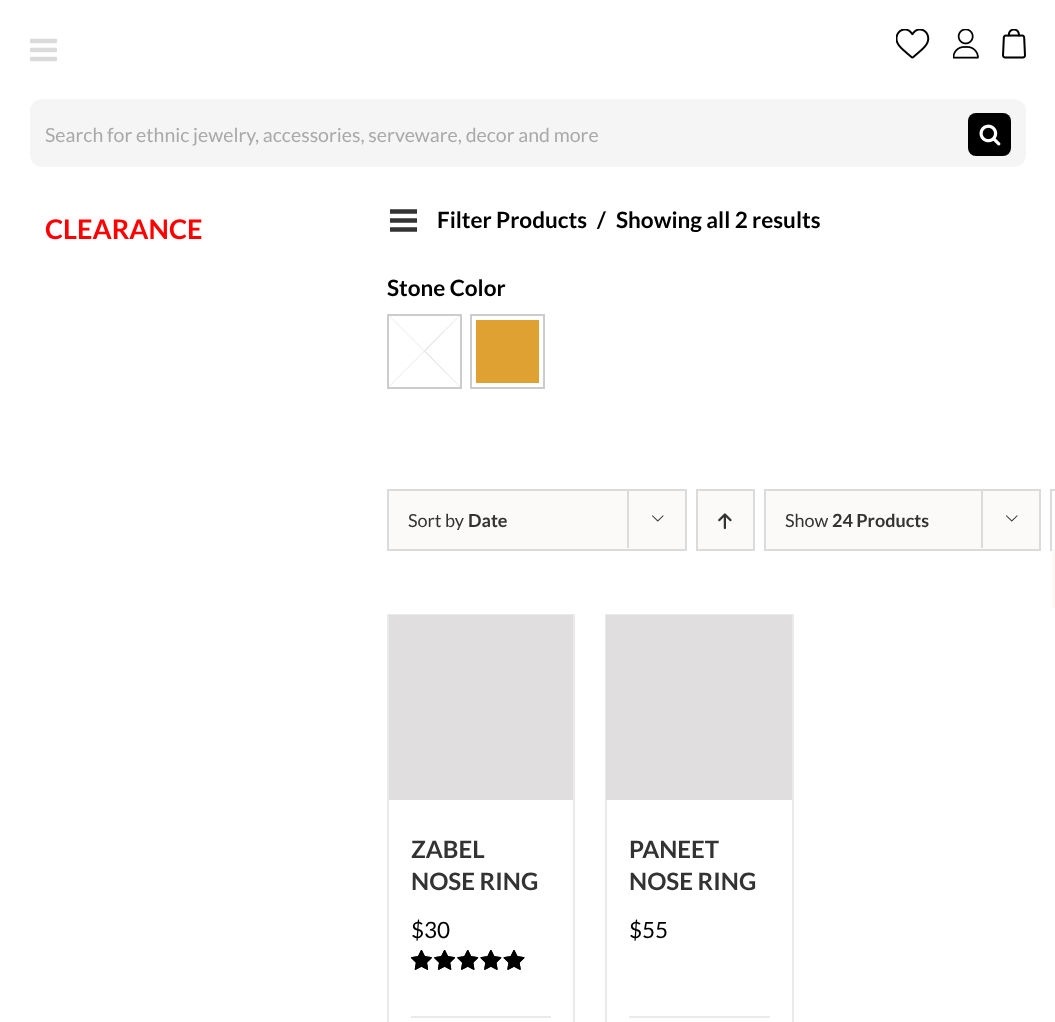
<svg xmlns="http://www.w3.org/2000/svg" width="1055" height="1022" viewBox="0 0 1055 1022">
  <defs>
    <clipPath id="clip1"><rect x="389" y="315" width="72" height="72"/></clipPath>
  </defs>
  <rect width="100%" height="100%" fill="rgb(255,255,255)"/>
  <image x="30" y="38" width="27" height="24" href="pic1.png"/>
  <image x="896" y="29" width="34" height="30" href="pic2.png"/>
  <image x="953" y="29" width="26" height="30" href="pic3.png"/>
  <image x="1002" y="29" width="24" height="30" href="pic4.png"/>
  <rect x="30" y="99" width="996" height="68" rx="12" fill="rgb(245,245,245)"/>
  <text x="45" y="142" font-family="Lato" font-size="19.5" fill="rgb(170,169,169)">Search for ethnic jewelry, accessories, serveware, decor and more</text>
  <rect x="968" y="113" width="43" height="43" rx="8" fill="rgb(0,0,0)"/>
  <image x="979" y="124" width="22" height="22" href="pic5.png"/>
  <text x="45" y="239" font-family="Lato" font-size="27" font-weight="bold" fill="rgb(255,0,0)">CLEARANCE</text>
  <image x="390" y="209" width="27" height="23" href="pic6.png"/>
  <g font-family="Lato" font-size="22.5" font-weight="bold" fill="rgb(0,0,0)">
    <text x="437" y="228">Filter Products</text>
    <text x="597" y="228">/</text>
    <text x="616" y="228">Showing all 2 results</text>
    <text x="387" y="296">Stone Color</text>
  </g>
  <rect x="388" y="315" width="73" height="73" fill="none" stroke="rgb(204,204,204)" stroke-width="2"/>
  <g clip-path="url(#clip1)">
    <path d="M460 387L424.5 351.5L388.5 387L424 351L388.5 315L424.5 350.5L460.5 315L425 351L460.5 387Z" fill="none" stroke="rgb(219,219,219)" stroke-width="0.3"/>
  </g>
  <path d="M460 387L424 351L388 387L424 351L388 315L424 351L460 315L425 351Z" fill="rgb(219,219,219)"/>
  <rect x="471" y="315" width="73" height="73" fill="none" stroke="rgb(204,204,204)" stroke-width="2"/>
  <rect x="476" y="320" width="63" height="63" fill="rgb(224,161,51)"/>
  <rect x="388" y="490" width="298" height="60" fill="rgb(251,250,249)" stroke="rgb(219,219,219)" stroke-width="2"/>
  <text x="408" y="527" font-family="Lato" font-size="18" fill="rgb(51,51,51)">Sort by</text>
  <text x="468" y="527" font-family="Lato" font-size="18" font-weight="bold" fill="rgb(51,51,51)">Date</text>
  <rect x="627" y="489" width="2" height="59" fill="rgb(219,219,219)"/>
  <image x="652" y="515" width="12" height="7" href="pic7.png"/>
  <rect x="697" y="490" width="57" height="60" fill="rgb(251,250,249)" stroke="rgb(219,219,219)" stroke-width="2"/>
  <image x="718" y="513" width="14" height="17" href="pic8.png"/>
  <rect x="765" y="490" width="275" height="60" fill="rgb(251,250,249)" stroke="rgb(219,219,219)" stroke-width="2"/>
  <text x="785" y="527" font-family="Lato" font-size="18" fill="rgb(51,51,51)">Show</text>
  <text x="832" y="527" font-family="Lato" font-size="18" font-weight="bold" fill="rgb(51,51,51)">24 Products</text>
  <rect x="981" y="489" width="2" height="59" fill="rgb(219,219,219)"/>
  <image x="1006" y="515" width="12" height="7" href="pic7.png"/>
  <rect x="1051" y="490" width="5" height="60" fill="none" stroke="rgb(219,219,219)" stroke-width="2"/>
  <rect x="1052" y="549" width="3" height="59" fill="rgb(251,250,249)"/>
  <rect x="387" y="614" width="188" height="1" fill="rgb(235,234,234)"/>
  <rect x="573" y="614" width="2" height="408" fill="rgb(235,234,234)"/>
  <rect x="387" y="614" width="2" height="408" fill="rgb(235,234,234)"/>
  <rect x="389" y="615" width="184" height="185" fill="rgb(224,222,222)"/>
  <g font-family="Lato" font-size="24" font-weight="bold" fill="rgb(51,51,51)">
    <text>
      <tspan x="411" y="858">ZABEL</tspan>
      <tspan x="411" y="890">NOSE RING</tspan>
    </text>
  </g>
  <text x="411" y="938" font-family="Lato" font-size="22.5" fill="rgb(0,0,0)">$30</text>
  <image x="411" y="950" width="114" height="20" href="pic9.png"/>
  <image x="411" y="950" width="114" height="20" href="pic10.png"/>
  <rect x="411" y="1016" width="140" height="2" fill="rgb(235,234,234)"/>
  <rect x="605" y="614" width="189" height="1" fill="rgb(235,234,234)"/>
  <rect x="792" y="614" width="2" height="408" fill="rgb(235,234,234)"/>
  <rect x="605" y="614" width="2" height="408" fill="rgb(235,234,234)"/>
  <rect x="606" y="615" width="186" height="185" fill="rgb(224,222,222)"/>
  <g font-family="Lato" font-size="24" font-weight="bold" fill="rgb(51,51,51)">
    <text>
      <tspan x="629" y="858">PANEET</tspan>
      <tspan x="629" y="890">NOSE RING</tspan>
    </text>
  </g>
  <text x="629" y="938" font-family="Lato" font-size="22.5" fill="rgb(0,0,0)">$55</text>
  <rect x="629" y="1016" width="141" height="2" fill="rgb(235,234,234)"/>
</svg>
